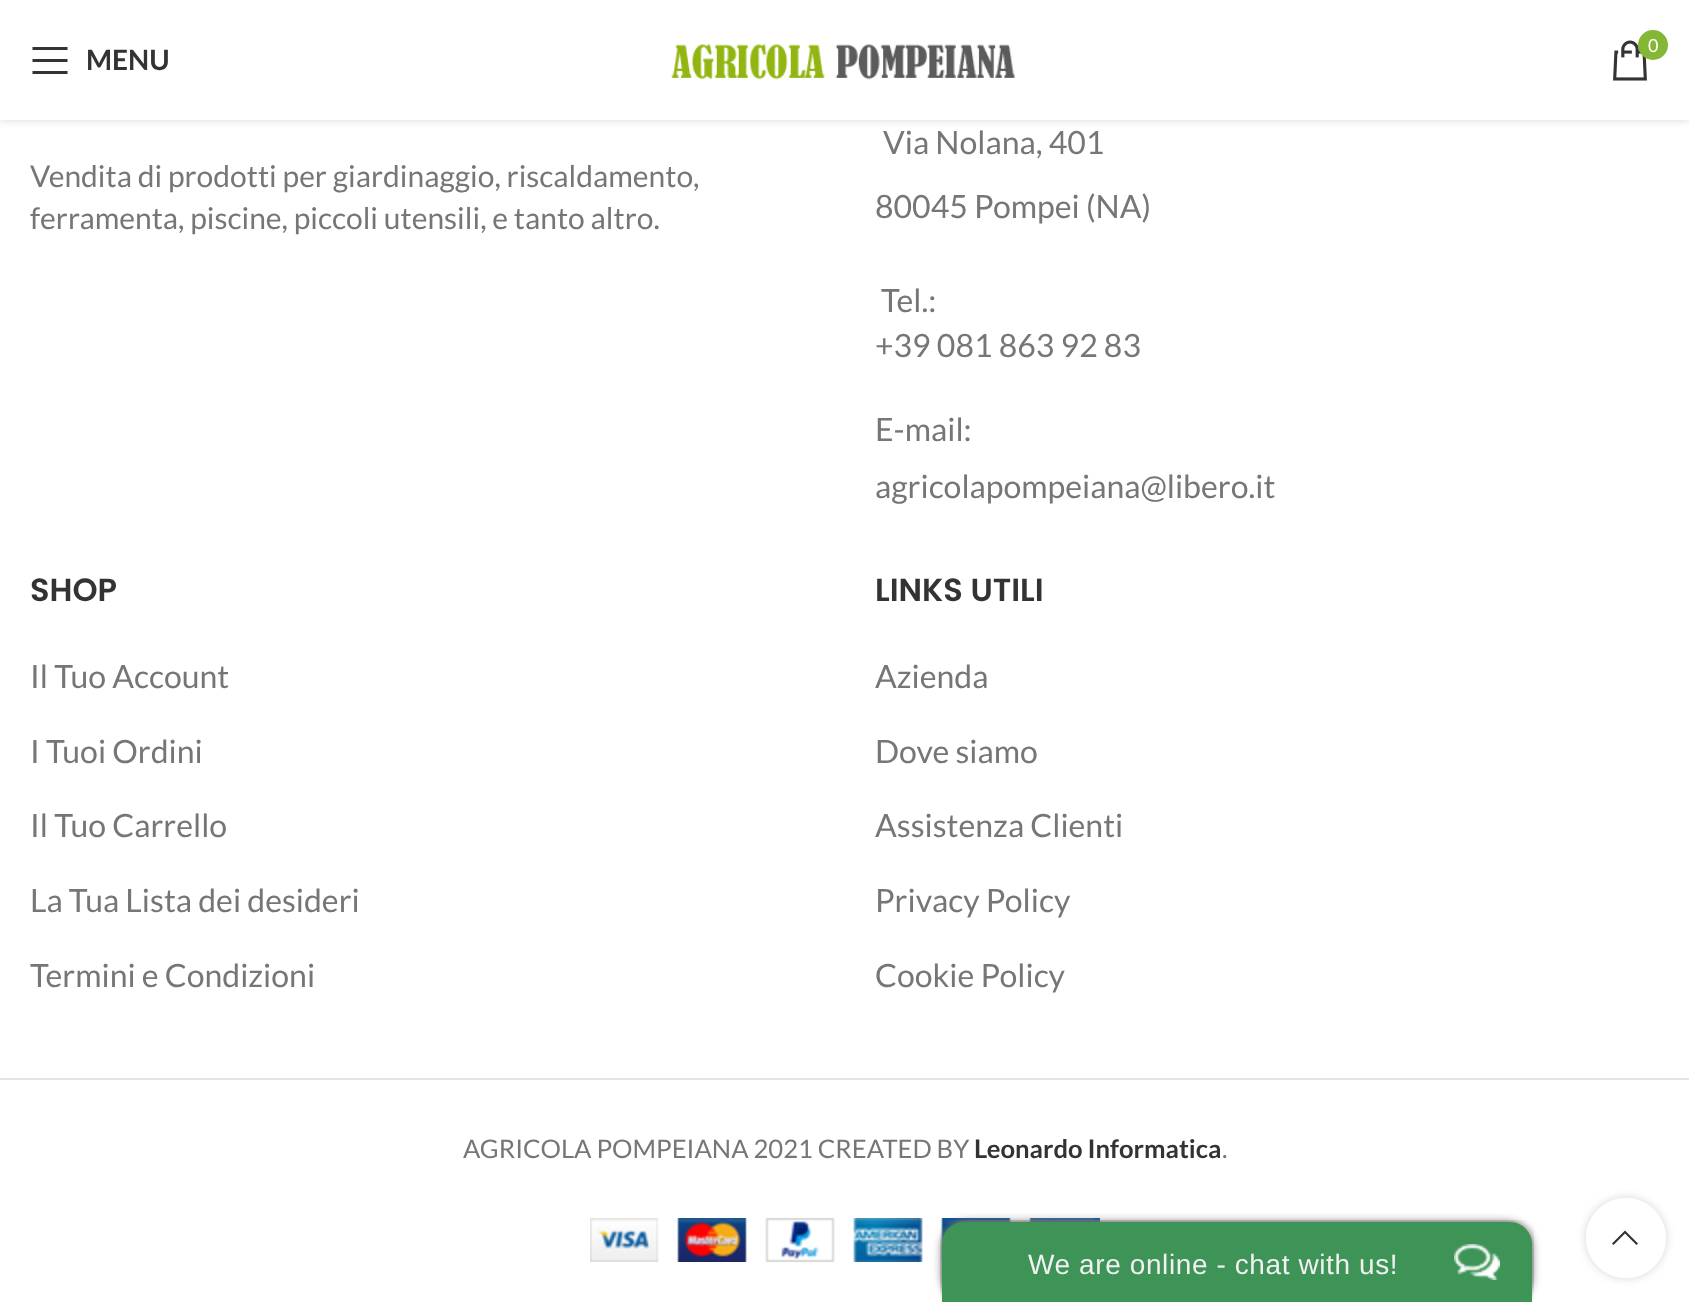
<svg xmlns="http://www.w3.org/2000/svg" width="1689" height="1302" viewBox="0 0 1689 1302">
  <defs>
    <clipPath id="clip1"><path d="M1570 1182H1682V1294H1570ZM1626 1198C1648 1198 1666 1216 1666 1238C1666 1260 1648 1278 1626 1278C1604 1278 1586 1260 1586 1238C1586 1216 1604 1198 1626 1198Z" clip-rule="evenodd"/></clipPath>
  </defs>
  <rect width="100%" height="100%" fill="rgb(255,255,255)"/>
  <rect x="0" y="2" width="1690" height="120" fill="rgba(0,0,0,0.1)" filter="blur(3px)"/>
  <rect x="0" y="0" width="1689" height="120" fill="rgb(255,255,255)"/>
  <path d="M32.5 50H67.5V47H32.5ZM32.5 62H67.5V59H32.5ZM32.5 74H67.5V71H32.5Z" fill="rgb(51,51,51)"/>
  <text x="86" y="70" font-family="Lato" font-size="28" font-weight="bold" fill="rgb(51,51,51)">MENU</text>
  <image x="671" y="44" width="344" height="36" href="pic1.png"/>
  <image x="1613" y="40" width="34" height="41" href="pic2.png"/>
  <circle cx="1653" cy="45" r="15" fill="rgb(131,183,53)"/>
  <text x="1648" y="52" font-family="Lato" font-size="18" fill="rgb(255,255,255)">0</text>
  <g font-family="Lato" font-size="30" fill="rgb(118,118,118)">
    <text>
      <tspan x="30" y="187">Vendita di prodotti per giardinaggio, riscaldamento,</tspan>
      <tspan x="30" y="229">ferramenta, piscine, piccoli utensili, e tanto altro.</tspan>
    </text>
  </g>
  <g font-family="Lato" font-size="32" fill="rgb(118,118,118)">
    <text x="883" y="154">Via Nolana, 401</text>
    <text x="875" y="218">80045 Pompei (NA)</text>
    <text x="881" y="312">Tel.:</text>
    <text x="875" y="357">+39 081 863 92 83</text>
    <text>
      <tspan x="875" y="441">E-mail:</tspan>
      <tspan x="875" y="498">agricolapompeiana@libero.it</tspan>
    </text>
  </g>
  <text x="30" y="601" font-family="Poppins" font-size="32" font-weight="600" fill="rgb(51,51,51)">SHOP</text>
  <g font-family="Lato" font-size="32" fill="rgb(118,118,118)">
    <text x="30" y="688">Il Tuo Account</text>
    <text x="30" y="763">I Tuoi Ordini</text>
    <text x="30" y="837">Il Tuo Carrello</text>
    <text x="30" y="912">La Tua Lista dei desideri</text>
    <text x="30" y="987">Termini e Condizioni</text>
  </g>
  <text x="875" y="601" font-family="Poppins" font-size="32" font-weight="600" fill="rgb(51,51,51)">LINKS UTILI</text>
  <g font-family="Lato" font-size="32" fill="rgb(118,118,118)">
    <text x="875" y="688">Azienda</text>
    <text x="875" y="763">Dove siamo</text>
    <text x="875" y="837">Assistenza Clienti</text>
    <text x="875" y="912">Privacy Policy</text>
    <text x="875" y="987">Cookie Policy</text>
  </g>
  <rect x="0" y="1078" width="1689" height="2" fill="rgb(228,228,228)"/>
  <text x="463" y="1158" font-family="Lato" font-size="25.6" fill="rgb(118,118,118)">AGRICOLA POMPEIANA 2021 CREATED BY</text>
  <text x="974" y="1158" font-family="Lato" font-size="25.6" font-weight="bold" fill="rgb(51,51,51)">Leonardo Informatica</text>
  <text x="1222" y="1158" font-family="Lato" font-size="25.6" fill="rgb(118,118,118)">.</text>
  <image x="590" y="1218" width="510" height="44" href="pic3.png"/>
  <rect x="942" y="1222" width="590" height="80" rx="26" fill="rgb(119,119,119)" filter="blur(5px)"/>
  <image x="940" y="1220" width="594" height="81" href="pic4.png"/>
  <path d="M964 1222H1510C1522 1222 1532 1232 1532 1244V1302H942V1244C942 1232 952 1222 964 1222Z" fill="rgb(61,148,86)"/>
  <text x="1028" y="1274" font-family="Liberation Sans" font-size="28" letter-spacing="0.6" fill="rgb(241,241,241)">We are online - chat with us!</text>
  <image x="1454" y="1244" width="46" height="36" href="pic5.png"/>
  <g clip-path="url(#clip1)">
    <rect x="1586" y="1198" width="80" height="80" rx="40" fill="rgba(0,0,0,0.17)" filter="blur(5px)"/>
  </g>
  <circle cx="1626" cy="1238" r="40" fill="rgba(255,255,255,0.9)"/>
  <path d="M1636.5 1245L1638 1243.5L1625 1230.5L1612 1243.5L1613.5 1245L1625 1233.5Z" fill="rgb(51,51,51)"/>
</svg>
